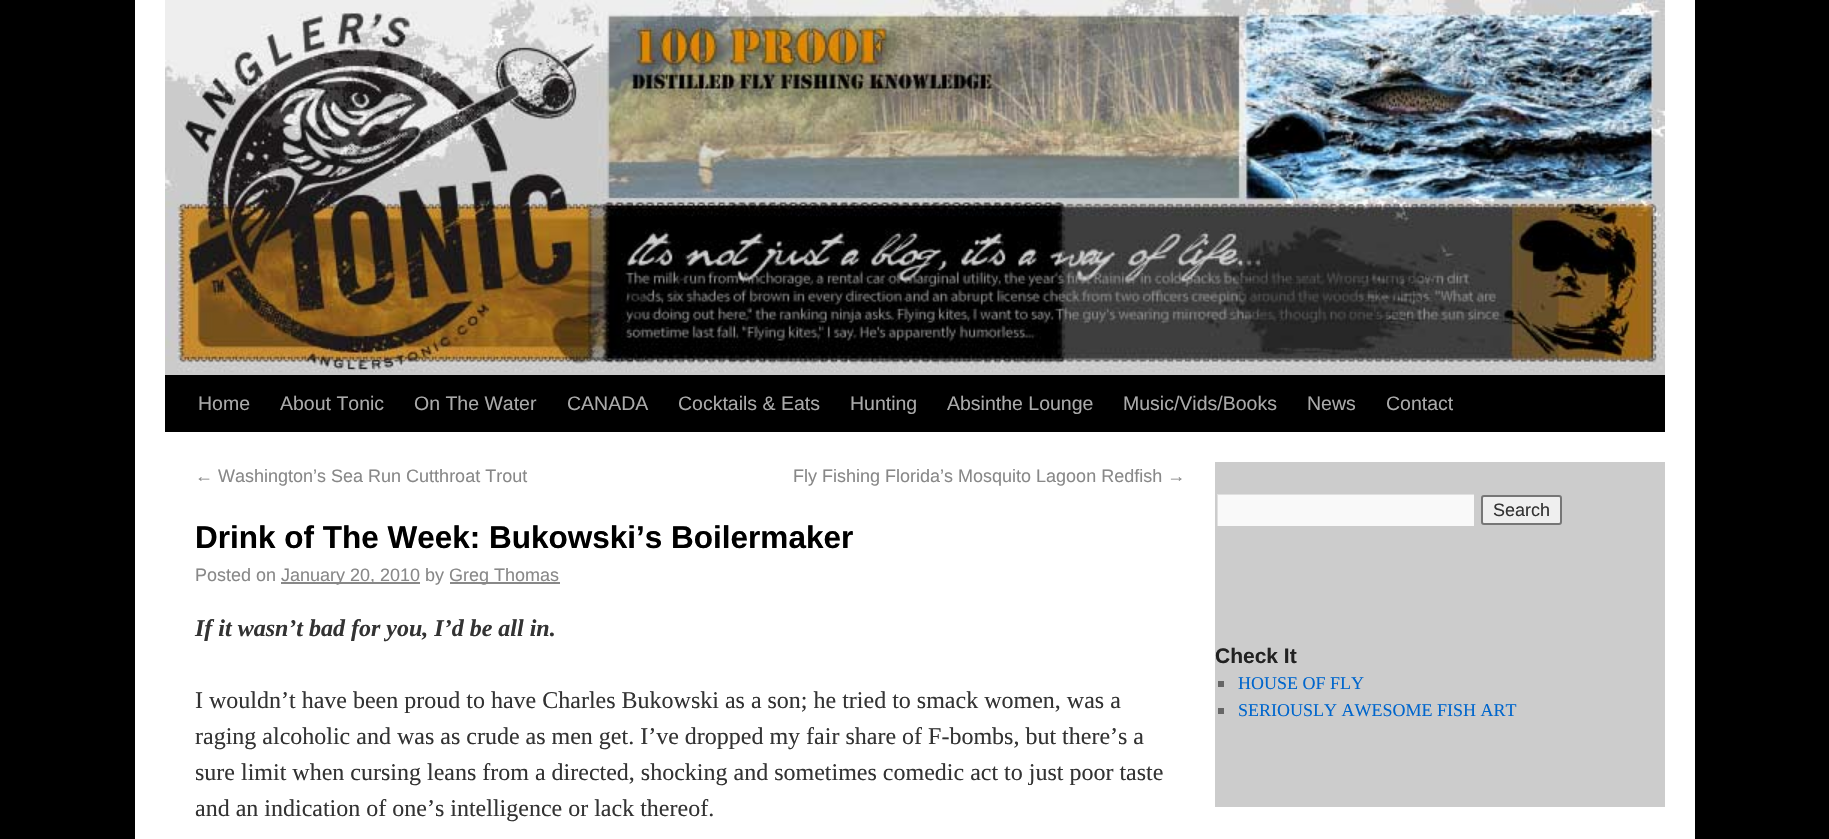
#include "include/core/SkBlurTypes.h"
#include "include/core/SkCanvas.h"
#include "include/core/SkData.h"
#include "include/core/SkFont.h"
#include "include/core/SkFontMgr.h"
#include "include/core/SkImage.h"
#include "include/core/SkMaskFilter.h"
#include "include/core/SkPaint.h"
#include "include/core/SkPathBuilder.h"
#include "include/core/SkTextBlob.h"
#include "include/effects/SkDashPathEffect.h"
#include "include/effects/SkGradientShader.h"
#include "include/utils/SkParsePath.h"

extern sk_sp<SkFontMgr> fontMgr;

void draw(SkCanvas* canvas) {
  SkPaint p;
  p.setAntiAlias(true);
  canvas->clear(SK_ColorBLACK);
  p.setColor(SK_ColorWHITE);
  canvas->drawRect(SkRect::MakeLTRB(135, 0, 1695, 839), p);
  canvas->drawImageRect(SkImages::DeferredFromEncodedData(SkData::MakeFromFileName("images/1.png")), SkRect::MakeLTRB(165, 0, 1665, 375), SkSamplingOptions());
  p.setColor(SK_ColorBLACK);
  canvas->drawRect(SkRect::MakeLTRB(165, 375, 1665, 432), p);
  p.setColor(SkColorSetRGB(136, 136, 136));
  canvas->drawRect(SkRect::MakeLTRB(281, 582, 420, 584), p);
  canvas->drawRect(SkRect::MakeLTRB(450, 582, 560, 584), p);
  p.setColor(SkColorSetRGB(204, 204, 204));
  canvas->drawRect(SkRect::MakeLTRB(1215, 462, 1665, 807), p);
  p.setColor(SkColorSetRGB(249, 249, 249));
  canvas->drawRect(SkRect::MakeLTRB(1218, 495, 1474, 526), p);
  canvas->save();
  canvas->clipRect(SkRect::MakeLTRB(1217, 494, 1475, 527));
  p.setColor(SkColorSetRGB(224, 224, 224));
  canvas->drawPath(SkPathBuilder(SkPathFillType::kEvenOdd).moveTo(1068, 345).lineTo(1623, 345).lineTo(1623, 675).lineTo(1068, 675).close().moveTo(1218, 495).lineTo(1476, 495).lineTo(1476, 528).lineTo(1218, 528).close().detach(), p);
  canvas->restore();
  p.setStyle(SkPaint::kStroke_Style);
  p.setStrokeWidth(2);
  p.setColor(SkColorSetRGB(204, 204, 204));
  canvas->drawRect(SkRect::MakeLTRB(1216, 493, 1475, 527), p);
  p.setStyle(SkPaint::kFill_Style);
  p.setColor(SkColorSetRGB(239, 239, 239));
  canvas->drawRoundRect(SkRect::MakeLTRB(1482, 496, 1561, 524), 2, 2, p);
  p.setStyle(SkPaint::kStroke_Style);
  p.setColor(SkColorSetRGB(118, 118, 118));
  canvas->drawRoundRect(SkRect::MakeLTRB(1482, 496, 1561, 524), 2, 2, p);
  p.setStyle(SkPaint::kFill_Style);
  p.setColor(SkColorSetRGB(102, 102, 102));
  canvas->drawRect(SkRect::MakeLTRB(1218, 681, 1224, 687), p);
  canvas->drawRect(SkRect::MakeLTRB(1218, 708, 1224, 714), p);
  SkFont font1(fontMgr->matchFamilyStyle("Liberation Sans", SkFontStyle::Normal()), 19.5f);
  font1.setSubpixel(true);
  p.setColor(SkColorSetRGB(170, 170, 170));
  canvas->drawString("Home", 198, 410, font1, p);
  canvas->drawString("About Tonic", 280, 410, font1, p);
  canvas->drawString("On The Water", 414, 410, font1, p);
  canvas->drawString("CANADA", 567, 410, font1, p);
  canvas->drawString("Cocktails & Eats", 678, 410, font1, p);
  canvas->drawString("Hunting", 850, 410, font1, p);
  canvas->drawString("Absinthe Lounge", 947, 410, font1, p);
  canvas->drawString("Music/Vids/Books", 1123, 410, font1, p);
  canvas->drawString("News", 1307, 410, font1, p);
  canvas->drawString("Contact", 1386, 410, font1, p);
  SkFont font2(fontMgr->matchFamilyStyle("Liberation Sans", SkFontStyle::Normal()), 18);
  font2.setSubpixel(true);
  p.setColor(SkColorSetRGB(136, 136, 136));
  canvas->drawString("← Washington’s Sea Run Cutthroat Trout", 195, 482, font2, p);
  canvas->drawString("Fly Fishing Florida’s Mosquito Lagoon Redfish →", 793, 482, font2, p);
  SkFont font3(fontMgr->matchFamilyStyle("Liberation Sans", SkFontStyle::Bold()), 31.5f);
  font3.setSubpixel(true);
  p.setColor(SK_ColorBLACK);
  canvas->drawString("Drink of The Week: Bukowski’s Boilermaker", 195, 548, font3, p);
  p.setColor(SkColorSetRGB(136, 136, 136));
  canvas->drawString("Posted on", 195, 581, font2, p);
  canvas->drawString("January 20, 2010 by", 281, 581, font2, p);
  canvas->drawString("Greg Thomas", 449, 581, font2, p);
  SkFont font4(fontMgr->matchFamilyStyle("Liberation Serif", SkFontStyle::BoldItalic()), 24);
  font4.setSubpixel(true);
  p.setColor(SkColorSetRGB(51, 51, 51));
  canvas->drawString("If it wasn’t bad for you, I’d be all in.", 195, 636, font4, p);
  SkFont font5(fontMgr->matchFamilyStyle("Liberation Serif", SkFontStyle::Normal()), 24);
  font5.setSubpixel(true);
  canvas->drawString("I wouldn’t have been proud to have Charles Bukowski as a son; he tried to smack women, was a", 195, 708, font5, p);
  canvas->drawString("raging alcoholic and was as crude as men get. I’ve dropped my fair share of F-bombs, but there’s a", 195, 744, font5, p);
  canvas->drawString("sure limit when cursing leans from a directed, shocking and sometimes comedic act to just poor taste", 195, 780, font5, p);
  canvas->drawString("and an indication of one’s intelligence or lack thereof.", 195, 816, font5, p);
  canvas->drawString("Search", 1493, 516, font2, p);
  SkFont font6(fontMgr->matchFamilyStyle("Liberation Sans", SkFontStyle::Bold()), 21);
  font6.setSubpixel(true);
  p.setColor(SkColorSetRGB(34, 34, 34));
  canvas->drawString("Check It", 1215, 663, font6, p);
  SkFont font7(fontMgr->matchFamilyStyle("Liberation Serif", SkFontStyle::Normal()), 18);
  font7.setSubpixel(true);
  p.setColor(SkColorSetRGB(0, 102, 204));
  canvas->drawString("HOUSE OF FLY", 1238, 689, font7, p);
  canvas->drawString("SERIOUSLY AWESOME FISH ART", 1238, 716, font7, p);
}
